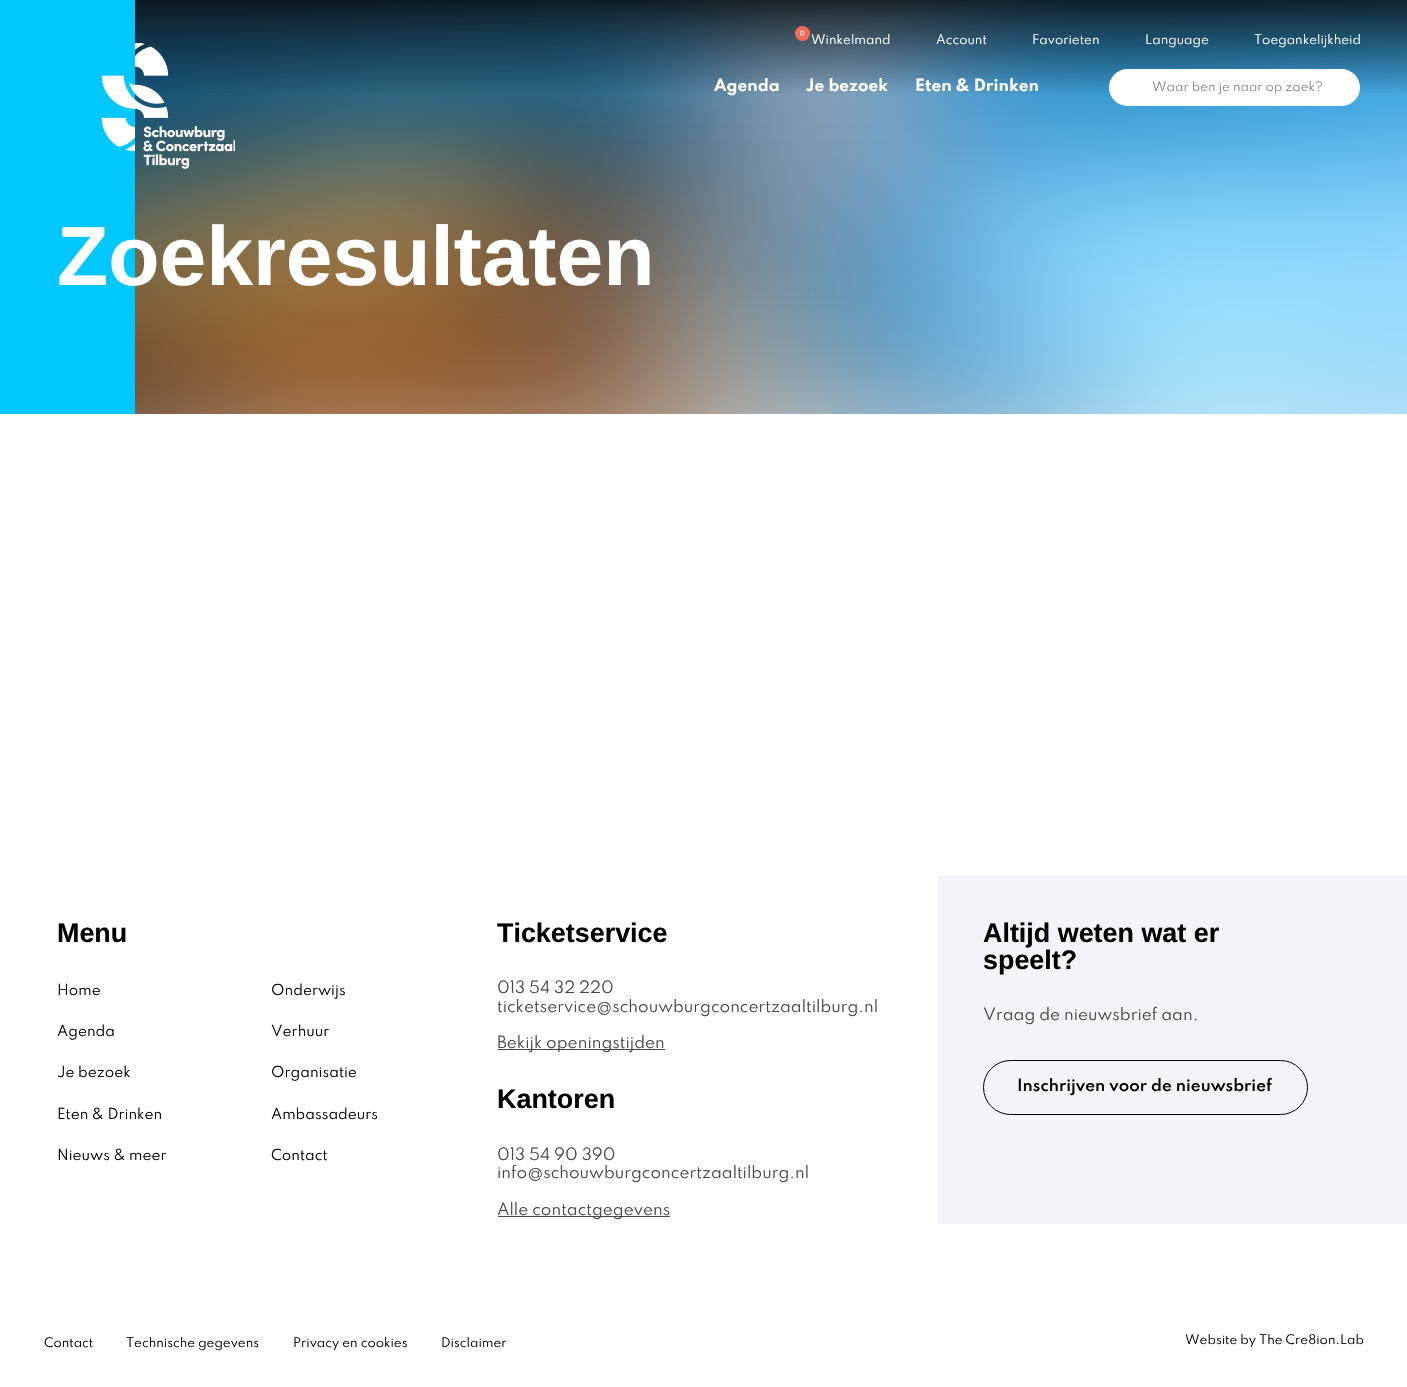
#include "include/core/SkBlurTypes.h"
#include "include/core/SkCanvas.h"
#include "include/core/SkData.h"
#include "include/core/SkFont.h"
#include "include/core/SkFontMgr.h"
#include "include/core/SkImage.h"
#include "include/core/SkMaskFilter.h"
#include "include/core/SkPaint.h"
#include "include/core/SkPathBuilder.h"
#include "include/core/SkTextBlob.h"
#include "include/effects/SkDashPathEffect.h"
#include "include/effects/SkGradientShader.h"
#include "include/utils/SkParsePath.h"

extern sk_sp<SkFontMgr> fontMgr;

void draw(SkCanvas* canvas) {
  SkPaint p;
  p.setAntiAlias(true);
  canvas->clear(SK_ColorWHITE);
  canvas->drawImageRect(SkImages::DeferredFromEncodedData(SkData::MakeFromFileName("images/2.png")), SkRect::MakeLTRB(135, 0, 1407, 414), SkSamplingOptions());
  {
    const SkColor colors[] = {SkColorSetARGB(204, 0, 0, 0), SkColorSetARGB(0, 0, 0, 0)};
    const float stops[] = {0, 0.23f};
    const SkPoint ends[] = {{704, 0}, {704, 414}};
    p.setShader(SkGradientShader::MakeLinear(ends, colors, stops, 2, SkTileMode::kClamp));
    p.setAlpha(255);
  }
  canvas->drawRect(SkRect::MakeLTRB(135, 0, 1407, 93), p);
  p.setShader(nullptr);
  p.setColor(SkColorSetRGB(0, 200, 255));
  canvas->drawRect(SkRect::MakeLTRB(0, 0, 135, 414), p);
  canvas->drawImageRect(SkImages::DeferredFromEncodedData(SkData::MakeFromFileName("images/1.png")), SkRect::MakeLTRB(101, 43, 235, 169), SkSamplingOptions());
  p.setColor(SkColorSetRGB(242, 108, 91));
  canvas->drawCircle(802.5f, 33.5f, 7.5f, p);
  p.setColor(SK_ColorWHITE);
  canvas->drawRoundRect(SkRect::MakeLTRB(1109, 69, 1360, 106), 18.5f, 18.5f, p);
  p.setColor(SkColorSetRGB(69, 69, 69));
  canvas->drawRect(SkRect::MakeLTRB(498, 1049, 665, 1050), p);
  canvas->drawRect(SkRect::MakeLTRB(498, 1216, 670, 1217), p);
  p.setColor(SkColorSetRGB(243, 243, 249));
  canvas->drawRect(SkRect::MakeLTRB(938, 875, 1407, 1224), p);
  p.setStyle(SkPaint::kStroke_Style);
  p.setStrokeWidth(1);
  p.setColor(SK_ColorBLACK);
  canvas->drawRoundRect(SkRect::MakeLTRB(983.5f, 1060.5f, 1307.5f, 1114.5f), 27, 27, p);
  SkFont font1(fontMgr->matchFamilyStyle("Liberation Sans", SkFontStyle::Normal()), 8);
  font1.setSubpixel(true);
  p.setStyle(SkPaint::kFill_Style);
  p.setColor(SK_ColorWHITE);
  canvas->drawString("0", 800, 36, font1, p);
  SkFont font2(fontMgr->matchFamilyStyle("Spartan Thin", SkFontStyle::Normal()), 11.75f);
  font2.setSubpixel(true);
  canvas->drawString("Winkelmand", 811, 44, font2, p);
  canvas->drawString("Account", 936, 44, font2, p);
  canvas->drawString("Favorieten", 1032, 44, font2, p);
  canvas->drawString("Language", 1145, 44, font2, p);
  canvas->drawString("Toegankelijkheid", 1254, 44, font2, p);
  SkFont font3(fontMgr->matchFamilyStyle("Spartan Thin", SkFontStyle::Bold()), 15.1f);
  font3.setSubpixel(true);
  canvas->drawString("Agenda", 714, 91, font3, p);
  canvas->drawString("Je bezoek", 806, 91, font3, p);
  canvas->drawString("Eten & Drinken", 915, 91, font3, p);
  p.setColor(SkColorSetRGB(136, 136, 136));
  canvas->drawString("Waar ben je naar op zoek?", 1152, 91, font2, p);
  SkFont font4(fontMgr->matchFamilyStyle("Liberation Sans", SkFontStyle::Bold()), 84);
  font4.setSubpixel(true);
  p.setColor(SK_ColorWHITE);
  canvas->drawString("Zoekresultaten", 57, 285, font4, p);
  SkFont font5(fontMgr->matchFamilyStyle("Liberation Sans", SkFontStyle::Bold()), 26.9f);
  font5.setSubpixel(true);
  p.setColor(SK_ColorBLACK);
  canvas->drawString("Menu", 57, 942, font5, p);
  SkFont font6(fontMgr->matchFamilyStyle("Spartan Thin", SkFontStyle::Normal()), 13.5f);
  font6.setSubpixel(true);
  canvas->drawString("Home", 57, 995, font6, p);
  canvas->drawString("Onderwijs", 271, 995, font6, p);
  canvas->drawString("Agenda", 57, 1036, font6, p);
  canvas->drawString("Verhuur", 271, 1036, font6, p);
  canvas->drawString("Je bezoek", 57, 1077, font6, p);
  canvas->drawString("Organisatie", 271, 1077, font6, p);
  canvas->drawString("Eten & Drinken", 57, 1119, font6, p);
  canvas->drawString("Ambassadeurs", 271, 1119, font6, p);
  canvas->drawString("Nieuws & meer", 57, 1160, font6, p);
  canvas->drawString("Contact", 271, 1160, font6, p);
  canvas->drawString("Ticketservice", 497, 942, font5, p);
  SkFont font7(fontMgr->matchFamilyStyle("Spartan Thin", SkFontStyle::Normal()), 15.1f);
  font7.setSubpixel(true);
  p.setColor(SkColorSetRGB(69, 69, 69));
  canvas->drawString("013 54 32 220", 497, 993, font7, p);
  canvas->drawString("ticketservice@schouwburgconcertzaaltilburg.nl", 497, 1012, font7, p);
  canvas->drawString("Bekijk openingstijden", 497, 1048, font7, p);
  p.setColor(SK_ColorBLACK);
  canvas->drawString("Kantoren", 497, 1108, font5, p);
  p.setColor(SkColorSetRGB(69, 69, 69));
  canvas->drawString("013 54 90 390", 497, 1160, font7, p);
  canvas->drawString("info@schouwburgconcertzaaltilburg.nl", 497, 1178, font7, p);
  canvas->drawString("Alle contactgegevens", 497, 1215, font7, p);
  p.setColor(SK_ColorBLACK);
  canvas->drawString("Altijd weten wat er", 983, 942, font5, p);
  canvas->drawString("speelt?", 983, 969, font5, p);
  p.setColor(SkColorSetRGB(69, 69, 69));
  canvas->drawString("Vraag de nieuwsbrief aan.", 983, 1020, font7, p);
  SkFont font8(fontMgr->matchFamilyStyle("Spartan Thin", SkFontStyle(600, SkFontStyle::kNormal_Width, SkFontStyle::kUpright_Slant)), 15.1f);
  font8.setSubpixel(true);
  p.setColor(SK_ColorBLACK);
  canvas->drawString("Inschrijven voor de nieuwsbrief", 1017, 1091, font8, p);
  canvas->drawString("Contact", 44, 1347, font2, p);
  canvas->drawString("Technische gegevens", 126, 1347, font2, p);
  canvas->drawString("Privacy en cookies", 293, 1347, font2, p);
  canvas->drawString("Disclaimer", 441, 1347, font2, p);
  canvas->drawString("Website by The Cre8ion.Lab", 1185, 1344, font2, p);
}
